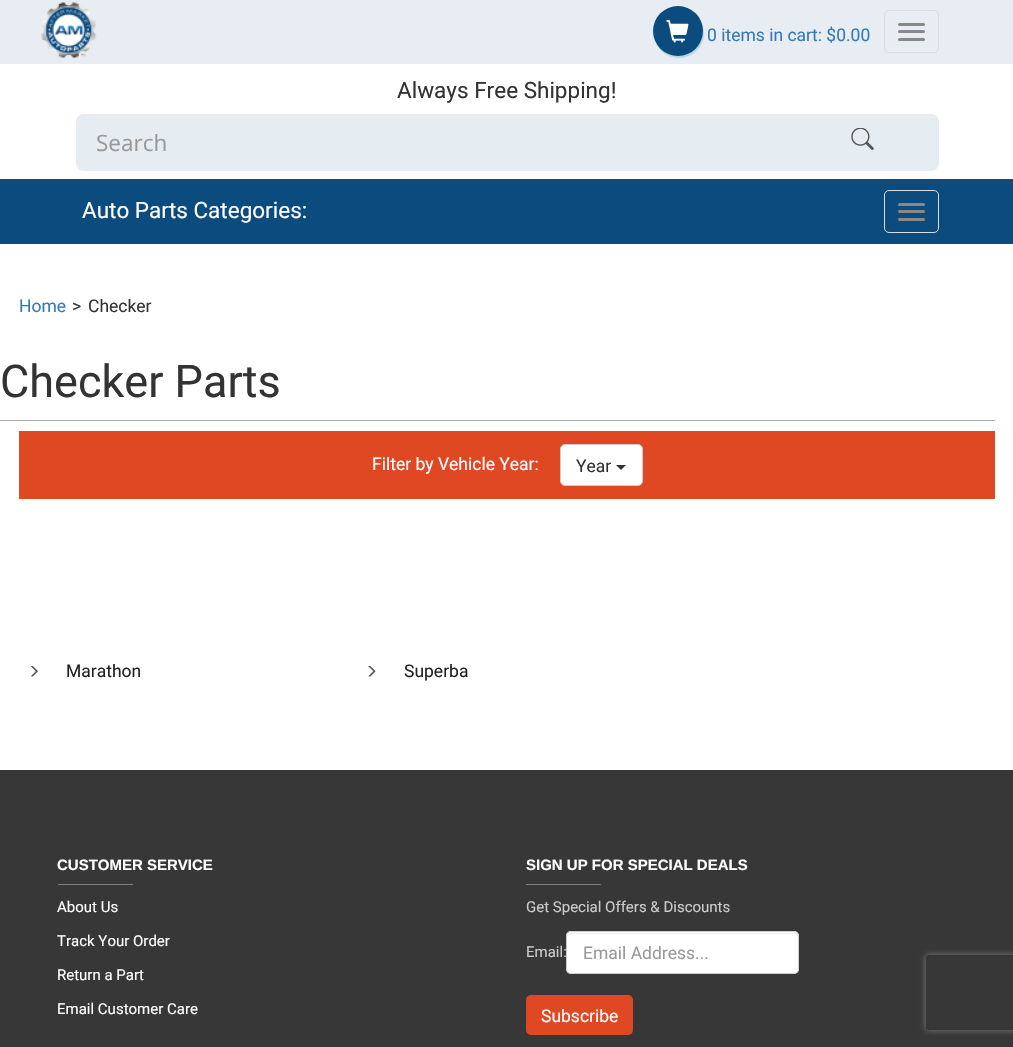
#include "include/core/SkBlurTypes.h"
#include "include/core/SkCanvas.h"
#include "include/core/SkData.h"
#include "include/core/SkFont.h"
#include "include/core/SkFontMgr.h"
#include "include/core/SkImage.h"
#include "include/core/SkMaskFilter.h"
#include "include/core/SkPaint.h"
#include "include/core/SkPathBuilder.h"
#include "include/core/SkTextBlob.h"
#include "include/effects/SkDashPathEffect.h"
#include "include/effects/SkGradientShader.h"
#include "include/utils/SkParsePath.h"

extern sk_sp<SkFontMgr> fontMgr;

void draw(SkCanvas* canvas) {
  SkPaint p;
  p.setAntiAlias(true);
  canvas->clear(SK_ColorWHITE);
  p.setColor(SkColorSetRGB(231, 237, 242));
  canvas->drawRect(SkRect::MakeLTRB(0, 0, 1013, 64), p);
  canvas->drawImageRect(SkImages::DeferredFromEncodedData(SkData::MakeFromFileName("images/1.png")), SkRect::MakeLTRB(41, 2, 97, 59), SkSamplingOptions());
  p.setColor(SkColorSetRGB(173, 216, 230));
  p.setMaskFilter(SkMaskFilter::MakeBlur(kNormal_SkBlurStyle, 0.5f));
  canvas->drawRoundRect(SkRect::MakeLTRB(654, 8, 704, 58), 25, 25, p);
  p.setMaskFilter(nullptr);
  p.setColor(SkColorSetRGB(12, 75, 126));
  canvas->drawCircle(678, 31, 25, p);
  canvas->drawImageRect(SkImages::DeferredFromEncodedData(SkData::MakeFromFileName("images/2.png")), SkRect::MakeLTRB(666, 20, 689, 43), SkSamplingOptions());
  p.setStyle(SkPaint::kStroke_Style);
  p.setStrokeWidth(1);
  p.setColor(SkColorSetRGB(221, 221, 221));
  canvas->drawRoundRect(SkRect::MakeLTRB(884.5f, 10.5f, 938.5f, 52.5f), 4.5f, 4.5f, p);
  p.setStyle(SkPaint::kFill_Style);
  p.setColor(SkColorSetRGB(136, 136, 136));
  canvas->drawRoundRect(SkRect::MakeLTRB(898, 23, 925, 26), 1.5f, 1.5f, p);
  canvas->drawRoundRect(SkRect::MakeLTRB(898, 30, 925, 33), 1.5f, 1.5f, p);
  canvas->drawRoundRect(SkRect::MakeLTRB(898, 38, 925, 41), 1.5f, 1.5f, p);
  p.setColor(SkColorSetRGB(230, 237, 242));
  canvas->drawPath(SkPathBuilder().moveTo(84, 114).lineTo(786, 114).lineTo(786, 171).lineTo(84, 171).cubicTo(79.5f, 171, 76, 167.5f, 76, 163).lineTo(76, 122).cubicTo(76, 117.5f, 79.5f, 114, 84, 114).close().detach(), p);
  canvas->drawPath(SkPathBuilder().moveTo(786, 114).lineTo(931, 114).cubicTo(935.5f, 114, 939, 117.5f, 939, 122).lineTo(939, 163).cubicTo(939, 167.5f, 935.5f, 171, 931, 171).lineTo(786, 171).close().detach(), p);
  canvas->drawImageRect(SkImages::DeferredFromEncodedData(SkData::MakeFromFileName("images/3.png")), SkRect::MakeLTRB(851, 128, 874, 150), SkSamplingOptions());
  p.setColor(SkColorSetRGB(12, 75, 126));
  canvas->drawRect(SkRect::MakeLTRB(0, 179, 1013, 244), p);
  p.setStyle(SkPaint::kStroke_Style);
  p.setColor(SkColorSetRGB(221, 221, 221));
  canvas->drawRoundRect(SkRect::MakeLTRB(884.5f, 190.5f, 938.5f, 232.5f), 4.5f, 4.5f, p);
  p.setStyle(SkPaint::kFill_Style);
  p.setColor(SkColorSetRGB(136, 136, 136));
  canvas->drawRoundRect(SkRect::MakeLTRB(898, 203, 925, 206), 1.5f, 1.5f, p);
  canvas->drawRoundRect(SkRect::MakeLTRB(898, 210, 925, 213), 1.5f, 1.5f, p);
  canvas->drawRoundRect(SkRect::MakeLTRB(898, 218, 925, 221), 1.5f, 1.5f, p);
  p.setColor(SkColorSetRGB(170, 170, 170));
  canvas->drawRect(SkRect::MakeLTRB(0, 420, 995, 421), p);
  p.setColor(SkColorSetRGB(224, 72, 35));
  canvas->drawRect(SkRect::MakeLTRB(19, 431, 995, 499), p);
  p.setColor(SK_ColorWHITE);
  canvas->drawRoundRect(SkRect::MakeLTRB(560.5f, 444.5f, 642.5f, 485.5f), 4.5f, 4.5f, p);
  p.setStyle(SkPaint::kStroke_Style);
  p.setColor(SkColorSetRGB(204, 204, 204));
  canvas->drawRoundRect(SkRect::MakeLTRB(560.5f, 444.5f, 642.5f, 485.5f), 4.5f, 4.5f, p);
  p.setStyle(SkPaint::kFill_Style);
  p.setColor(SkColorSetRGB(51, 51, 51));
  canvas->drawPath(SkPathBuilder().moveTo(616, 465).lineTo(626, 465).lineTo(621, 470).close().detach(), p);
  canvas->drawImageRect(SkImages::DeferredFromEncodedData(SkData::MakeFromFileName("images/4.png")), SkRect::MakeLTRB(30, 666, 38, 677), SkSamplingOptions());
  canvas->drawImageRect(SkImages::DeferredFromEncodedData(SkData::MakeFromFileName("images/5.png")), SkRect::MakeLTRB(368, 666, 376, 677), SkSamplingOptions());
  p.setColor(SkColorSetRGB(55, 55, 55));
  canvas->drawRect(SkRect::MakeLTRB(0, 770, 1013, 1047), p);
  p.setColor(SkColorSetRGB(128, 128, 128));
  canvas->drawRect(SkRect::MakeLTRB(58, 884, 133, 885), p);
  canvas->drawRect(SkRect::MakeLTRB(526, 884, 601, 885), p);
  p.setColor(SK_ColorWHITE);
  canvas->drawRoundRect(SkRect::MakeLTRB(566, 931, 799, 974), 5, 5, p);
  p.setColor(SkColorSetRGB(236, 236, 236));
  canvas->drawPath(SkPathBuilder().moveTo(571, 934).lineTo(794, 934).cubicTo(796, 934, 798, 935, 798, 938).cubicTo(798, 935, 797, 933, 794, 933).lineTo(572, 933).cubicTo(569, 933, 568, 935, 568, 938).cubicTo(568, 935, 569, 934, 571, 934).close().detach(), p);
  p.setStyle(SkPaint::kStroke_Style);
  p.setColor(SkColorSetRGB(204, 204, 204));
  canvas->drawRoundRect(SkRect::MakeLTRB(566.5f, 931.5f, 798.5f, 973.5f), 4.5f, 4.5f, p);
  p.setStyle(SkPaint::kFill_Style);
  p.setColor(SkColorSetRGB(224, 72, 35));
  canvas->drawRoundRect(SkRect::MakeLTRB(526, 995, 633, 1035), 5, 5, p);
  canvas->save();
  canvas->clipPath(SkPathBuilder(SkPathFillType::kEvenOdd).moveTo(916, 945).lineTo(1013, 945).lineTo(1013, 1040).lineTo(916, 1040).close().moveTo(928.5f, 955).lineTo(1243.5f, 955).cubicTo(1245, 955, 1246, 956, 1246, 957.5f).lineTo(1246, 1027.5f).cubicTo(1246, 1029, 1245, 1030, 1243.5f, 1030).lineTo(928.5f, 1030).cubicTo(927, 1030, 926, 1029, 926, 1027.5f).lineTo(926, 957.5f).cubicTo(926, 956, 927, 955, 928.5f, 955).close().detach(), true);
  p.setColor(SkColorSetRGB(128, 128, 128));
  p.setMaskFilter(SkMaskFilter::MakeBlur(kNormal_SkBlurStyle, 3));
  canvas->drawRoundRect(SkRect::MakeLTRB(926, 955, 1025, 1030), 2.5f, 2.5f, p);
  p.setMaskFilter(nullptr);
  canvas->restore();
  SkFont font1(fontMgr->matchFamilyStyle("Roboto", SkFontStyle::Normal()), 17.5f);
  font1.setSubpixel(true);
  p.setColor(SkColorSetRGB(51, 122, 183));
  canvas->drawString("0 items in cart: $0.00", 707, 41, font1, p);
  SkFont font2(fontMgr->matchFamilyStyle("Roboto", SkFontStyle::Normal()), 22.5f);
  font2.setSubpixel(true);
  p.setColor(SkColorSetRGB(51, 51, 51));
  canvas->drawString("Always Free Shipping!", 397, 98, font2, p);
  SkFont font3(fontMgr->matchFamilyStyle("Open Sans", SkFontStyle::Normal()), 22.5f);
  font3.setSubpixel(true);
  p.setColor(SkColorSetRGB(153, 153, 153));
  canvas->drawString("Search", 96, 151, font3, p);
  p.setColor(SK_ColorWHITE);
  canvas->drawString("Auto Parts Categories:", 82, 218, font2, p);
  p.setColor(SkColorSetRGB(51, 122, 183));
  canvas->drawString("Home", 19, 312, font1, p);
  p.setColor(SkColorSetRGB(51, 51, 51));
  canvas->drawString(">", 72, 312, font1, p);
  canvas->drawString("Checker", 88, 312, font1, p);
  SkFont font4(fontMgr->matchFamilyStyle("Roboto", SkFontStyle::Normal()), 45);
  font4.setSubpixel(true);
  canvas->drawString("Checker Parts", 0, 397, font4, p);
  p.setColor(SK_ColorWHITE);
  canvas->drawString("Filter by Vehicle Year:", 372, 470, font1, p);
  p.setColor(SkColorSetRGB(51, 51, 51));
  canvas->drawString("Year", 576, 472, font1, p);
  p.setColor(SkColorSetRGB(34, 34, 34));
  canvas->drawString("Marathon", 66, 677, font1, p);
  canvas->drawString("Superba", 404, 677, font1, p);
  SkFont font5(fontMgr->matchFamilyStyle("Liberation Sans", SkFontStyle::Bold()), 15);
  font5.setSubpixel(true);
  p.setColor(SK_ColorWHITE);
  canvas->drawString("CUSTOMER SERVICE", 57, 870, font5, p);
  SkFont font6(fontMgr->matchFamilyStyle("Roboto", SkFontStyle::Normal()), 15);
  font6.setSubpixel(true);
  canvas->drawString("About Us", 57, 912, font6, p);
  canvas->drawString("Track Your Order", 57, 946, font6, p);
  canvas->drawString("Return a Part", 57, 980, font6, p);
  canvas->drawString("Email Customer Care", 57, 1014, font6, p);
  canvas->drawString("SIGN UP FOR SPECIAL DEALS", 526, 870, font5, p);
  p.setColor(SkColorSetRGB(204, 204, 204));
  canvas->drawString("Get Special Offers & Discounts", 526, 912, font6, p);
  canvas->drawString("Email:", 526, 957, font6, p);
  p.setColor(SkColorSetRGB(153, 153, 153));
  canvas->drawString("Email Address...", 583, 959, font1, p);
  p.setColor(SK_ColorWHITE);
  canvas->drawString("Subscribe", 541, 1022, font1, p);
}
